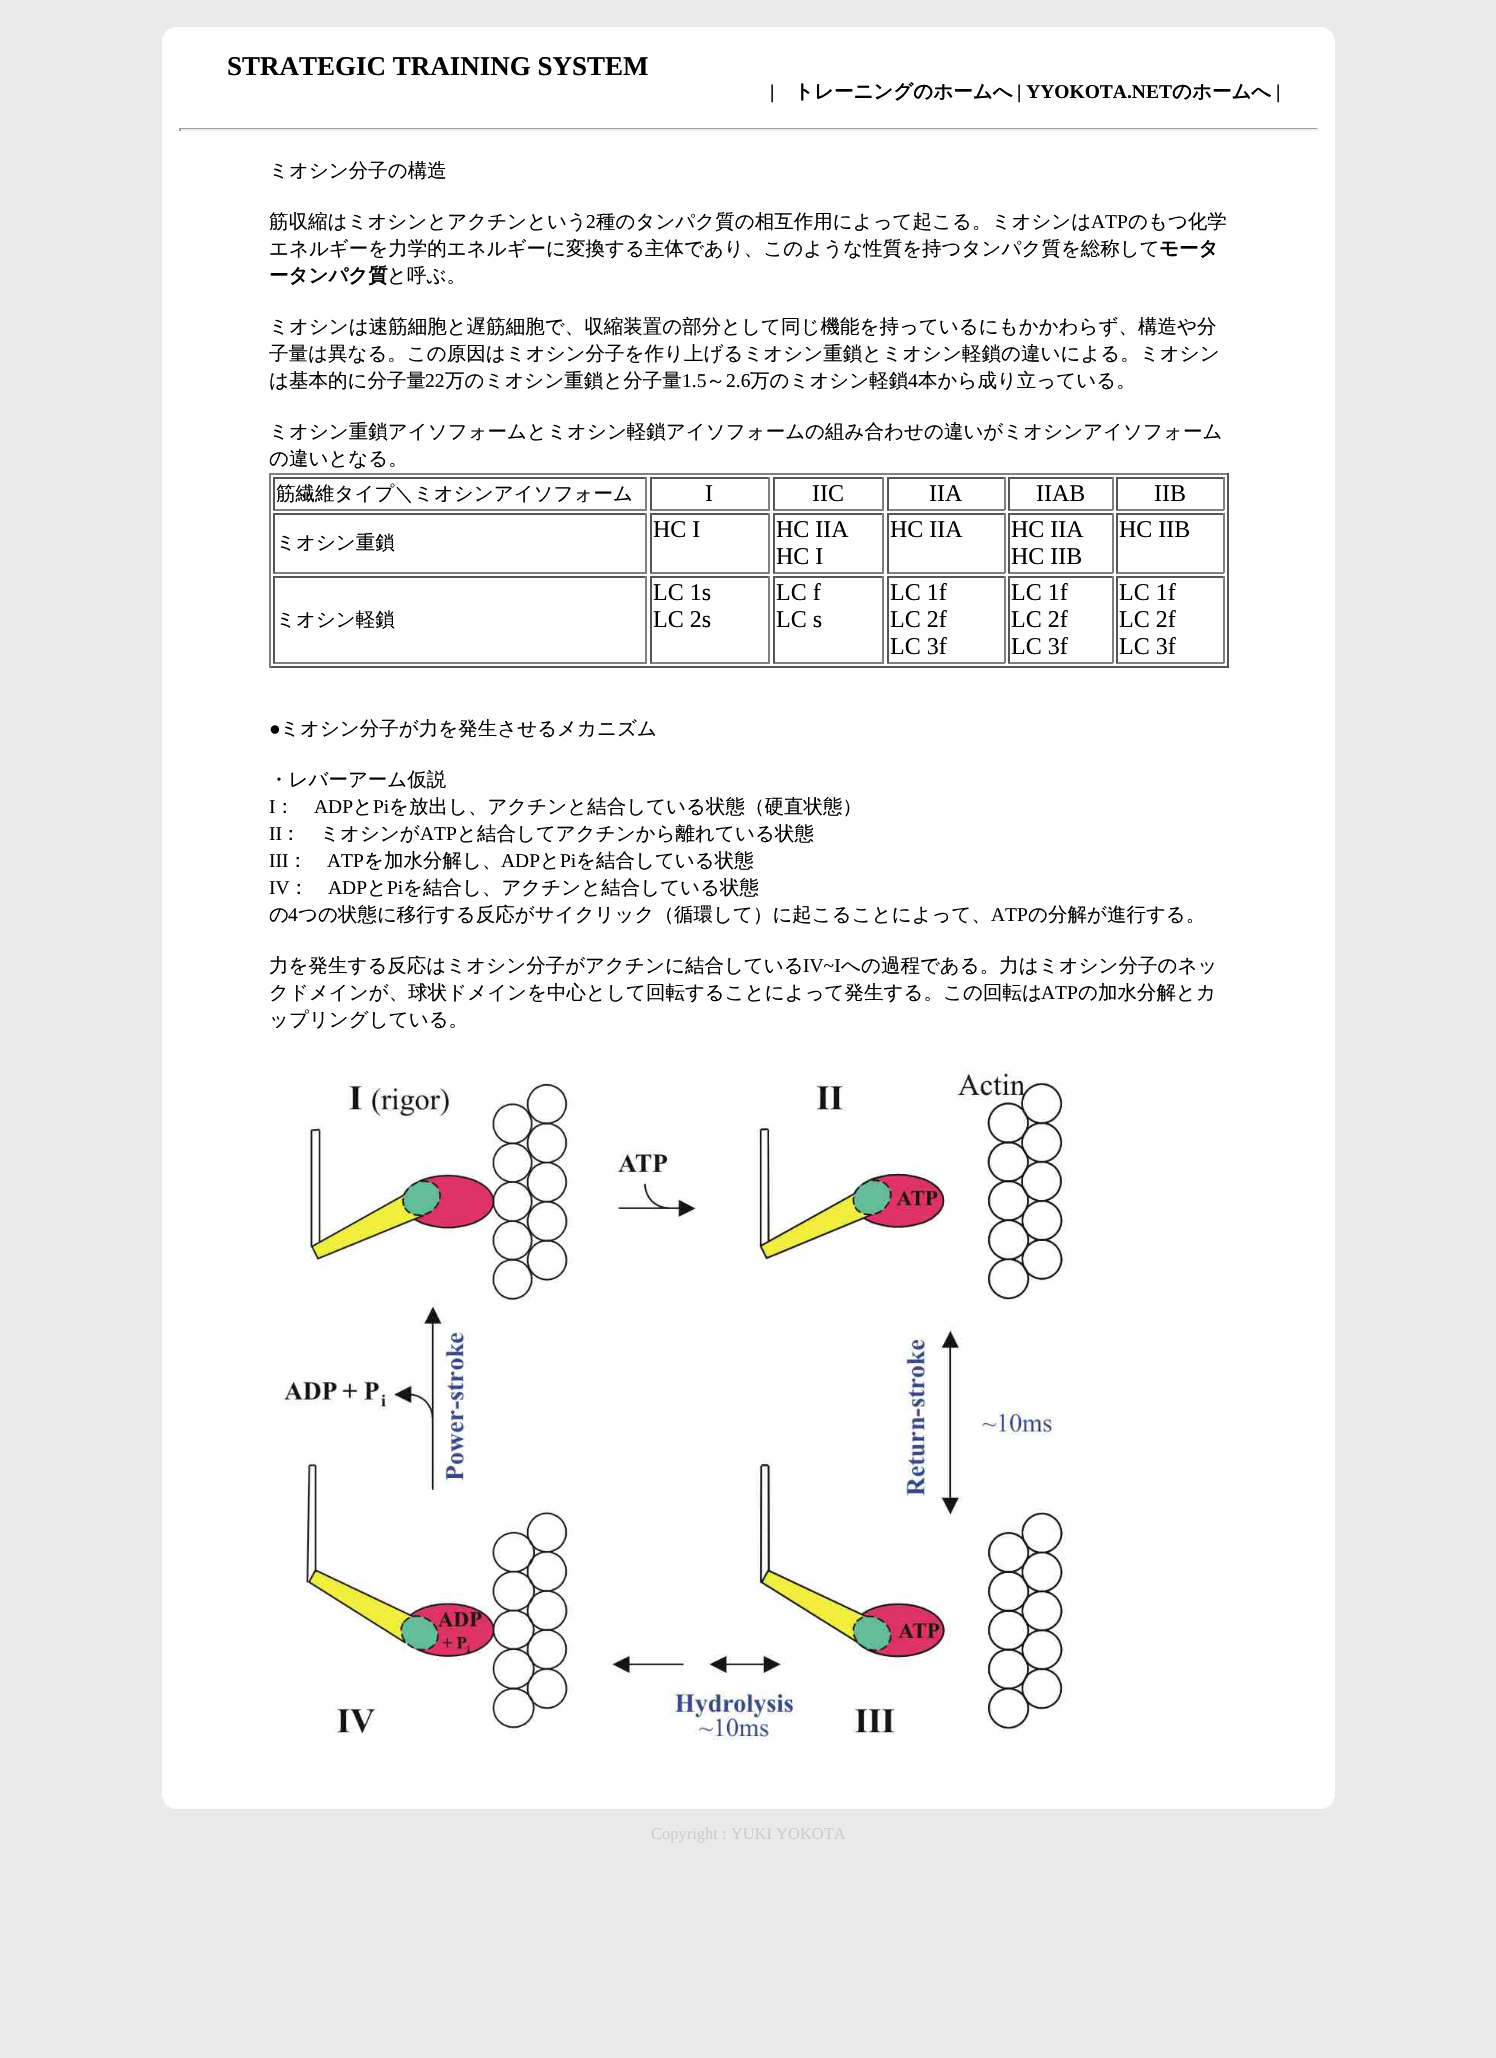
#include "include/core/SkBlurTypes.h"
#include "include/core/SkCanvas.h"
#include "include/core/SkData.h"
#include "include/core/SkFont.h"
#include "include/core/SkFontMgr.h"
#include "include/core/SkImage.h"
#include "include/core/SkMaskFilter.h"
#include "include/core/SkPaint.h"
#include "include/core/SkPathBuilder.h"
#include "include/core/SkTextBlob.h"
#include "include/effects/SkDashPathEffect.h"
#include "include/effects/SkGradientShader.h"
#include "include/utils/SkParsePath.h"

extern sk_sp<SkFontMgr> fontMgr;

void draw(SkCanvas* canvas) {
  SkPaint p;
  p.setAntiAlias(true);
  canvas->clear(SkColorSetRGB(234, 234, 234));
  p.setColor(SK_ColorWHITE);
  canvas->drawRect(SkRect::MakeLTRB(162, 27, 1335, 1809), p);
  canvas->drawImageRect(SkImages::DeferredFromEncodedData(SkData::MakeFromFileName("images/1.png")), SkRect::MakeLTRB(162, 27, 173, 38), SkSamplingOptions());
  canvas->drawImageRect(SkImages::DeferredFromEncodedData(SkData::MakeFromFileName("images/2.png")), SkRect::MakeLTRB(1324, 27, 1335, 38), SkSamplingOptions());
  p.setColor(SkColorSetRGB(159, 159, 159));
  canvas->drawRect(SkRect::MakeLTRB(179, 128, 1319, 129), p);
  p.setColor(SkColorSetRGB(238, 238, 238));
  canvas->drawRect(SkRect::MakeLTRB(1317, 128, 1319, 131), p);
  canvas->drawRect(SkRect::MakeLTRB(179, 129, 1319, 131), p);
  p.setColor(SkColorSetRGB(159, 159, 159));
  canvas->drawRect(SkRect::MakeLTRB(179, 128, 181, 131), p);
  p.setColor(SkColorSetRGB(128, 128, 128));
  canvas->drawRect(SkRect::MakeLTRB(269, 473, 1229, 475), p);
  p.setColor(SkColorSetRGB(85, 85, 85));
  canvas->drawRect(SkRect::MakeLTRB(1227, 473, 1229, 668), p);
  canvas->drawRect(SkRect::MakeLTRB(269, 666, 1229, 668), p);
  p.setColor(SkColorSetRGB(128, 128, 128));
  canvas->drawRect(SkRect::MakeLTRB(269, 473, 271, 668), p);
  p.setColor(SkColorSetRGB(85, 85, 85));
  canvas->drawRect(SkRect::MakeLTRB(273, 477, 647, 479), p);
  p.setColor(SkColorSetRGB(128, 128, 128));
  canvas->drawRect(SkRect::MakeLTRB(645, 477, 647, 510), p);
  canvas->drawRect(SkRect::MakeLTRB(273, 509, 647, 511), p);
  p.setColor(SkColorSetRGB(85, 85, 85));
  canvas->drawRect(SkRect::MakeLTRB(273, 477, 275, 510), p);
  canvas->drawRect(SkRect::MakeLTRB(650, 477, 770, 479), p);
  p.setColor(SkColorSetRGB(128, 128, 128));
  canvas->drawRect(SkRect::MakeLTRB(768, 477, 770, 510), p);
  canvas->drawRect(SkRect::MakeLTRB(650, 509, 770, 511), p);
  p.setColor(SkColorSetRGB(85, 85, 85));
  canvas->drawRect(SkRect::MakeLTRB(650, 477, 652, 510), p);
  canvas->drawRect(SkRect::MakeLTRB(773, 477, 884, 479), p);
  p.setColor(SkColorSetRGB(128, 128, 128));
  canvas->drawRect(SkRect::MakeLTRB(882, 477, 884, 510), p);
  canvas->drawRect(SkRect::MakeLTRB(773, 509, 884, 511), p);
  p.setColor(SkColorSetRGB(85, 85, 85));
  canvas->drawRect(SkRect::MakeLTRB(773, 477, 775, 510), p);
  canvas->drawRect(SkRect::MakeLTRB(887, 477, 1005, 479), p);
  p.setColor(SkColorSetRGB(128, 128, 128));
  canvas->drawRect(SkRect::MakeLTRB(1004, 477, 1006, 510), p);
  canvas->drawRect(SkRect::MakeLTRB(887, 509, 1005, 511), p);
  p.setColor(SkColorSetRGB(85, 85, 85));
  canvas->drawRect(SkRect::MakeLTRB(887, 477, 889, 510), p);
  canvas->drawRect(SkRect::MakeLTRB(1008, 477, 1113, 479), p);
  p.setColor(SkColorSetRGB(128, 128, 128));
  canvas->drawRect(SkRect::MakeLTRB(1112, 477, 1114, 510), p);
  canvas->drawRect(SkRect::MakeLTRB(1008, 509, 1113, 511), p);
  p.setColor(SkColorSetRGB(85, 85, 85));
  canvas->drawRect(SkRect::MakeLTRB(1008, 477, 1010, 510), p);
  canvas->drawRect(SkRect::MakeLTRB(1116, 477, 1224, 479), p);
  p.setColor(SkColorSetRGB(128, 128, 128));
  canvas->drawRect(SkRect::MakeLTRB(1223, 477, 1225, 510), p);
  canvas->drawRect(SkRect::MakeLTRB(1116, 509, 1224, 511), p);
  p.setColor(SkColorSetRGB(85, 85, 85));
  canvas->drawRect(SkRect::MakeLTRB(1116, 477, 1118, 510), p);
  canvas->drawRect(SkRect::MakeLTRB(650, 513, 770, 515), p);
  p.setColor(SkColorSetRGB(128, 128, 128));
  canvas->drawRect(SkRect::MakeLTRB(768, 513, 770, 573), p);
  canvas->drawRect(SkRect::MakeLTRB(650, 572, 770, 574), p);
  p.setColor(SkColorSetRGB(85, 85, 85));
  canvas->drawRect(SkRect::MakeLTRB(650, 513, 652, 573), p);
  canvas->drawRect(SkRect::MakeLTRB(773, 513, 884, 515), p);
  p.setColor(SkColorSetRGB(128, 128, 128));
  canvas->drawRect(SkRect::MakeLTRB(882, 513, 884, 573), p);
  canvas->drawRect(SkRect::MakeLTRB(773, 572, 884, 574), p);
  p.setColor(SkColorSetRGB(85, 85, 85));
  canvas->drawRect(SkRect::MakeLTRB(773, 513, 775, 573), p);
  canvas->drawRect(SkRect::MakeLTRB(887, 513, 1005, 515), p);
  p.setColor(SkColorSetRGB(128, 128, 128));
  canvas->drawRect(SkRect::MakeLTRB(1004, 513, 1006, 573), p);
  canvas->drawRect(SkRect::MakeLTRB(887, 572, 1005, 574), p);
  p.setColor(SkColorSetRGB(85, 85, 85));
  canvas->drawRect(SkRect::MakeLTRB(887, 513, 889, 573), p);
  canvas->drawRect(SkRect::MakeLTRB(1008, 513, 1113, 515), p);
  p.setColor(SkColorSetRGB(128, 128, 128));
  canvas->drawRect(SkRect::MakeLTRB(1112, 513, 1114, 573), p);
  canvas->drawRect(SkRect::MakeLTRB(1008, 572, 1113, 574), p);
  p.setColor(SkColorSetRGB(85, 85, 85));
  canvas->drawRect(SkRect::MakeLTRB(1008, 513, 1010, 573), p);
  canvas->drawRect(SkRect::MakeLTRB(1116, 513, 1224, 515), p);
  p.setColor(SkColorSetRGB(128, 128, 128));
  canvas->drawRect(SkRect::MakeLTRB(1223, 513, 1225, 573), p);
  canvas->drawRect(SkRect::MakeLTRB(1116, 572, 1224, 574), p);
  p.setColor(SkColorSetRGB(85, 85, 85));
  canvas->drawRect(SkRect::MakeLTRB(1116, 513, 1118, 573), p);
  canvas->drawRect(SkRect::MakeLTRB(273, 513, 647, 515), p);
  p.setColor(SkColorSetRGB(128, 128, 128));
  canvas->drawRect(SkRect::MakeLTRB(645, 513, 647, 573), p);
  canvas->drawRect(SkRect::MakeLTRB(273, 572, 647, 574), p);
  p.setColor(SkColorSetRGB(85, 85, 85));
  canvas->drawRect(SkRect::MakeLTRB(273, 513, 275, 573), p);
  canvas->drawRect(SkRect::MakeLTRB(273, 576, 647, 578), p);
  p.setColor(SkColorSetRGB(128, 128, 128));
  canvas->drawRect(SkRect::MakeLTRB(645, 576, 647, 663), p);
  canvas->drawRect(SkRect::MakeLTRB(273, 662, 647, 664), p);
  p.setColor(SkColorSetRGB(85, 85, 85));
  canvas->drawRect(SkRect::MakeLTRB(273, 576, 275, 663), p);
  canvas->drawRect(SkRect::MakeLTRB(650, 576, 770, 578), p);
  p.setColor(SkColorSetRGB(128, 128, 128));
  canvas->drawRect(SkRect::MakeLTRB(768, 576, 770, 663), p);
  canvas->drawRect(SkRect::MakeLTRB(650, 662, 770, 664), p);
  p.setColor(SkColorSetRGB(85, 85, 85));
  canvas->drawRect(SkRect::MakeLTRB(650, 576, 652, 663), p);
  canvas->drawRect(SkRect::MakeLTRB(773, 576, 884, 578), p);
  p.setColor(SkColorSetRGB(128, 128, 128));
  canvas->drawRect(SkRect::MakeLTRB(882, 576, 884, 663), p);
  canvas->drawRect(SkRect::MakeLTRB(773, 662, 884, 664), p);
  p.setColor(SkColorSetRGB(85, 85, 85));
  canvas->drawRect(SkRect::MakeLTRB(773, 576, 775, 663), p);
  canvas->drawRect(SkRect::MakeLTRB(887, 576, 1005, 578), p);
  p.setColor(SkColorSetRGB(128, 128, 128));
  canvas->drawRect(SkRect::MakeLTRB(1004, 576, 1006, 663), p);
  canvas->drawRect(SkRect::MakeLTRB(887, 662, 1005, 664), p);
  p.setColor(SkColorSetRGB(85, 85, 85));
  canvas->drawRect(SkRect::MakeLTRB(887, 576, 889, 663), p);
  canvas->drawRect(SkRect::MakeLTRB(1008, 576, 1113, 578), p);
  p.setColor(SkColorSetRGB(128, 128, 128));
  canvas->drawRect(SkRect::MakeLTRB(1112, 576, 1114, 663), p);
  canvas->drawRect(SkRect::MakeLTRB(1008, 662, 1113, 664), p);
  p.setColor(SkColorSetRGB(85, 85, 85));
  canvas->drawRect(SkRect::MakeLTRB(1008, 576, 1010, 663), p);
  canvas->drawRect(SkRect::MakeLTRB(1116, 576, 1224, 578), p);
  p.setColor(SkColorSetRGB(128, 128, 128));
  canvas->drawRect(SkRect::MakeLTRB(1223, 576, 1225, 663), p);
  canvas->drawRect(SkRect::MakeLTRB(1116, 662, 1224, 664), p);
  p.setColor(SkColorSetRGB(85, 85, 85));
  canvas->drawRect(SkRect::MakeLTRB(1116, 576, 1118, 663), p);
  canvas->drawImageRect(SkImages::DeferredFromEncodedData(SkData::MakeFromFileName("images/3.png")), SkRect::MakeLTRB(281, 1070, 1066, 1740), SkSamplingOptions());
  canvas->drawImageRect(SkImages::DeferredFromEncodedData(SkData::MakeFromFileName("images/4.png")), SkRect::MakeLTRB(162, 1798, 173, 1809), SkSamplingOptions());
  canvas->drawImageRect(SkImages::DeferredFromEncodedData(SkData::MakeFromFileName("images/5.png")), SkRect::MakeLTRB(1324, 1798, 1335, 1809), SkSamplingOptions());
  SkFont font1(fontMgr->matchFamilyStyle("Liberation Serif", SkFontStyle::Bold()), 27);
  font1.setSubpixel(true);
  p.setColor(SK_ColorBLACK);
  canvas->drawString("STRATEGIC TRAINING SYSTEM", 227, 75, font1, p);
  SkFont font2(fontMgr->matchFamilyStyle("Liberation Serif", SkFontStyle::Bold()), 19.5f);
  font2.setSubpixel(true);
  canvas->drawString("|", 770, 98, font2, p);
  SkFont font3(fontMgr->matchFamilyStyle("WenQuanYi Zen Hei", SkFontStyle::Bold()), 19.5f);
  font3.setSubpixel(true);
  canvas->drawString("トレーニングのホームへ", 794, 98, font3, p);
  canvas->drawString("| YYOKOTA.NET", 1017, 98, font2, p);
  canvas->drawString("のホームへ", 1172, 98, font3, p);
  canvas->drawString("|", 1276, 98, font2, p);
  SkFont font4(fontMgr->matchFamilyStyle("WenQuanYi Zen Hei", SkFontStyle(500, SkFontStyle::kNormal_Width, SkFontStyle::kUpright_Slant)), 19.5f);
  font4.setSubpixel(true);
  canvas->drawString("ミオシン分子の構造", 269, 177, font4, p);
  canvas->drawString("筋収縮はミオシンとアクチンという", 269, 228, font4, p);
  SkFont font5(fontMgr->matchFamilyStyle("Liberation Serif", SkFontStyle::Normal()), 19.5f);
  font5.setSubpixel(true);
  canvas->drawString("2", 586, 228, font5, p);
  canvas->drawString("種のタンパク質の相互作用によって起こる。ミオシンは", 596, 228, font4, p);
  canvas->drawString("ATP", 1091, 228, font5, p);
  canvas->drawString("のもつ化学", 1128, 228, font4, p);
  canvas->drawString("エネルギーを力学的エネルギーに変換する主体であり、このような性質を持つタンパク質を総称して", 269, 255, font4, p);
  canvas->drawString("モータ", 1159, 255, font3, p);
  canvas->drawString("ータンパク質", 269, 282, font3, p);
  canvas->drawString("と呼ぶ。", 387, 282, font4, p);
  canvas->drawString("ミオシンは速筋細胞と遅筋細胞で、収縮装置の部分として同じ機能を持っているにもかかわらず、構造や分", 269, 333, font4, p);
  canvas->drawString("子量は異なる。この原因はミオシン分子を作り上げるミオシン重鎖とミオシン軽鎖の違いによる。ミオシン", 269, 360, font4, p);
  canvas->drawString("は基本的に分子量", 269, 387, font4, p);
  canvas->drawString("22", 425, 387, font5, p);
  canvas->drawString("万のミオシン重鎖と分子量", 445, 387, font4, p);
  canvas->drawString("1.5", 682, 387, font5, p);
  canvas->drawString("～", 706, 387, font4, p);
  canvas->drawString("2.6", 726, 387, font5, p);
  canvas->drawString("万のミオシン軽鎖", 750, 387, font4, p);
  canvas->drawString("4", 908, 387, font5, p);
  canvas->drawString("本から成り立っている。", 918, 387, font4, p);
  canvas->drawString("ミオシン重鎖アイソフォームとミオシン軽鎖アイソフォームの組み合わせの違いがミオシンアイソフォーム", 269, 438, font4, p);
  canvas->drawString("の違いとなる。", 269, 465, font4, p);
  canvas->drawString("筋繊維タイプ＼ミオシンアイソフォーム", 276, 500, font4, p);
  SkFont font6(fontMgr->matchFamilyStyle("Liberation Serif", SkFontStyle::Normal()), 24);
  font6.setSubpixel(true);
  canvas->drawString("I", 705, 501, font6, p);
  canvas->drawString("IIC", 812, 501, font6, p);
  canvas->drawString("IIA", 929, 501, font6, p);
  canvas->drawString("IIAB", 1036, 501, font6, p);
  canvas->drawString("IIB", 1154, 501, font6, p);
  canvas->drawString("HC I", 653, 537, font6, p);
  canvas->drawString("HC IIA", 776, 537, font6, p);
  canvas->drawString("HC I", 776, 564, font6, p);
  canvas->drawString("HC IIA", 890, 537, font6, p);
  canvas->drawString("HC IIA", 1011, 537, font6, p);
  canvas->drawString("HC IIB", 1011, 564, font6, p);
  canvas->drawString("HC IIB", 1119, 537, font6, p);
  canvas->drawString("ミオシン重鎖", 276, 549, font4, p);
  canvas->drawString("ミオシン軽鎖", 276, 626, font4, p);
  canvas->drawString("LC 1s", 653, 600, font6, p);
  canvas->drawString("LC 2s", 653, 627, font6, p);
  canvas->drawString("LC f", 776, 600, font6, p);
  canvas->drawString("LC s", 776, 627, font6, p);
  canvas->drawString("LC 1f", 890, 600, font6, p);
  canvas->drawString("LC 2f", 890, 627, font6, p);
  canvas->drawString("LC 3f", 890, 654, font6, p);
  canvas->drawString("LC 1f", 1011, 600, font6, p);
  canvas->drawString("LC 2f", 1011, 627, font6, p);
  canvas->drawString("LC 3f", 1011, 654, font6, p);
  canvas->drawString("LC 1f", 1119, 600, font6, p);
  canvas->drawString("LC 2f", 1119, 627, font6, p);
  canvas->drawString("LC 3f", 1119, 654, font6, p);
  canvas->drawString("●", 269, 735, font5, p);
  canvas->drawString("ミオシン分子が力を発生させるメカニズム", 280, 735, font4, p);
  canvas->drawString("・レバーアーム仮説", 269, 786, font4, p);
  canvas->drawString("I", 269, 813, font5, p);
  canvas->drawString("：", 275, 813, font4, p);
  canvas->drawString("ADP", 314, 813, font5, p);
  canvas->drawString("と", 353, 813, font4, p);
  canvas->drawString("Pi", 373, 813, font5, p);
  canvas->drawString("を放出し、アクチンと結合している状態（硬直状態）", 389, 813, font4, p);
  canvas->drawString("II", 269, 840, font5, p);
  canvas->drawString("：　ミオシンが", 281, 840, font4, p);
  canvas->drawString("ATP", 420, 840, font5, p);
  canvas->drawString("と結合してアクチンから離れている状態", 457, 840, font4, p);
  canvas->drawString("III", 269, 867, font5, p);
  canvas->drawString("：", 288, 867, font4, p);
  canvas->drawString("ATP", 327, 867, font5, p);
  canvas->drawString("を加水分解し、", 364, 867, font4, p);
  canvas->drawString("ADP", 501, 867, font5, p);
  canvas->drawString("と", 540, 867, font4, p);
  canvas->drawString("Pi", 560, 867, font5, p);
  canvas->drawString("を結合している状態", 576, 867, font4, p);
  canvas->drawString("IV", 269, 894, font5, p);
  canvas->drawString("：", 289, 894, font4, p);
  canvas->drawString("ADP", 328, 894, font5, p);
  canvas->drawString("と", 367, 894, font4, p);
  canvas->drawString("Pi", 387, 894, font5, p);
  canvas->drawString("を結合し、アクチンと結合している状態", 403, 894, font4, p);
  canvas->drawString("の", 269, 921, font4, p);
  canvas->drawString("4", 288, 921, font5, p);
  canvas->drawString("つの状態に移行する反応がサイクリック（循環して）に起こることによって、", 298, 921, font4, p);
  canvas->drawString("ATP", 991, 921, font5, p);
  canvas->drawString("の分解が進行する。", 1028, 921, font4, p);
  canvas->drawString("力を発生する反応はミオシン分子がアクチンに結合している", 269, 972, font4, p);
  canvas->drawString("IV~I", 803, 972, font5, p);
  canvas->drawString("への過程である。力はミオシン分子のネッ", 841, 972, font4, p);
  canvas->drawString("クドメインが、球状ドメインを中心として回転することによって発生する。この回転は", 269, 999, font4, p);
  canvas->drawString("ATP", 1041, 999, font5, p);
  canvas->drawString("の加水分解とカ", 1078, 999, font4, p);
  canvas->drawString("ップリングしている。", 269, 1026, font4, p);
  SkFont font7(fontMgr->matchFamilyStyle("Liberation Serif", SkFontStyle::Normal()), 16.5f);
  font7.setSubpixel(true);
  p.setColor(SkColorSetRGB(204, 204, 204));
  canvas->drawString("Copyright : YUKI YOKOTA", 651, 1839, font7, p);
}
